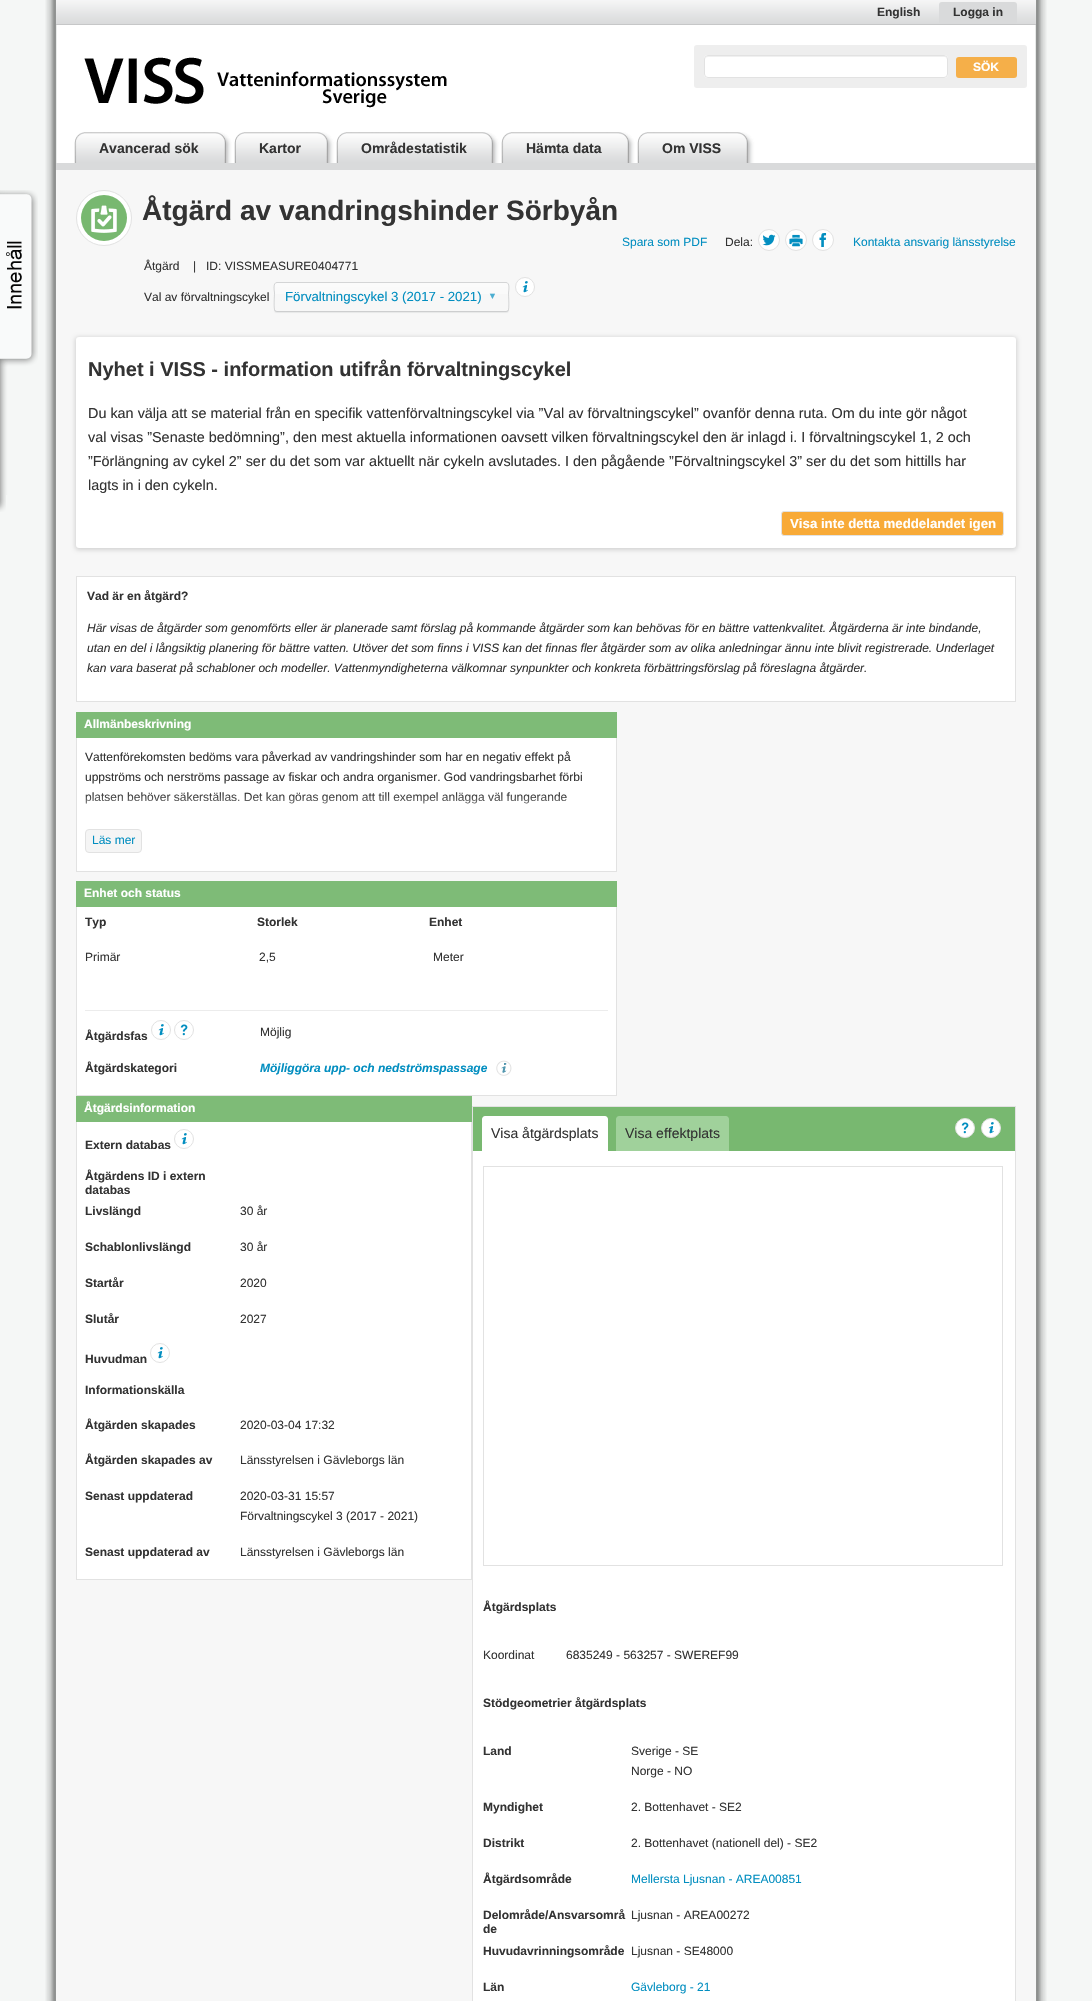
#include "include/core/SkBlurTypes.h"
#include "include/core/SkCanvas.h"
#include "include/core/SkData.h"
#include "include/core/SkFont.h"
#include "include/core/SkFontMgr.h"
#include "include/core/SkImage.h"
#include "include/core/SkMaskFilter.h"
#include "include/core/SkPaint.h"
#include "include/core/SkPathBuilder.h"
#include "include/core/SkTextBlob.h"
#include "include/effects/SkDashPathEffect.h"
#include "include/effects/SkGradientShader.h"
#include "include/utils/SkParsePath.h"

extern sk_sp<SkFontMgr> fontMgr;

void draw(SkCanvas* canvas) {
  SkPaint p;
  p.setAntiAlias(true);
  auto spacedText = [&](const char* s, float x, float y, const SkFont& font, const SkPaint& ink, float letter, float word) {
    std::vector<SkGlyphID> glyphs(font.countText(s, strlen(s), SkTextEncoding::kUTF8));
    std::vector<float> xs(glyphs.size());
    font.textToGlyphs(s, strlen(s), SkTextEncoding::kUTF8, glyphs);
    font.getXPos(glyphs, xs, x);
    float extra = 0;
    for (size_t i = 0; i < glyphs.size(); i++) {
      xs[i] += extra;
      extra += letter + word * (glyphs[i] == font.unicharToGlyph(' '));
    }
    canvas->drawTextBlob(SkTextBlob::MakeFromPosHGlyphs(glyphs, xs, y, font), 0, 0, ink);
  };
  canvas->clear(SkColorSetRGB(245, 247, 246));
  canvas->drawImageRect(SkImages::DeferredFromEncodedData(SkData::MakeFromFileName("images/1.png")), SkRect::MakeLTRB(45, 0, 1047, 2001), SkSamplingOptions());
  canvas->drawImageRect(SkImages::DeferredFromEncodedData(SkData::MakeFromFileName("images/2.png")), SkRect::MakeLTRB(56, 0, 1036, 25), SkSamplingOptions());
  p.setColor(SkColorSetRGB(217, 218, 219));
  canvas->drawRoundRect(SkRect::MakeLTRB(939, 2, 1017, 24), 3, 3, p);
  canvas->drawImageRect(SkImages::DeferredFromEncodedData(SkData::MakeFromFileName("images/3.png")), SkRect::MakeLTRB(84, 57, 447, 108), SkSamplingOptions());
  p.setColor(SkColorSetRGB(238, 238, 238));
  canvas->drawRoundRect(SkRect::MakeLTRB(694, 45, 1027, 88), 3, 3, p);
  p.setColor(SK_ColorWHITE);
  canvas->drawRoundRect(SkRect::MakeLTRB(704, 55, 948, 78), 4, 4, p);
  p.setColor(SkColorSetRGB(240, 240, 240));
  canvas->drawPath(SkPathBuilder().moveTo(708, 57).lineTo(945, 57).lineTo(947, 58).lineTo(947, 60).cubicTo(947, 58, 946, 56, 944, 56).lineTo(708, 56).cubicTo(706, 56, 705, 58, 705, 60).cubicTo(705, 58, 706, 57, 708, 57).close().detach(), p);
  p.setStyle(SkPaint::kStroke_Style);
  p.setStrokeWidth(1);
  p.setColor(SkColorSetRGB(226, 226, 226));
  canvas->drawRoundRect(SkRect::MakeLTRB(704.5f, 55.5f, 947.5f, 77.5f), 3.5f, 3.5f, p);
  p.setStyle(SkPaint::kFill_Style);
  p.setColor(SkColorSetRGB(245, 175, 73));
  canvas->drawRoundRect(SkRect::MakeLTRB(956, 57, 1017, 78), 3, 3, p);
  p.setColor(SkColorSetRGB(217, 218, 219));
  canvas->drawRect(SkRect::MakeLTRB(56, 163, 1036, 170), p);
  canvas->drawImageRect(SkImages::DeferredFromEncodedData(SkData::MakeFromFileName("images/4.png")), SkRect::MakeLTRB(74, 132, 84, 163), SkSamplingOptions());
  canvas->drawImageRect(SkImages::DeferredFromEncodedData(SkData::MakeFromFileName("images/5.png")), SkRect::MakeLTRB(84, 132, 234, 163), SkSamplingOptions());
  canvas->drawImageRect(SkImages::DeferredFromEncodedData(SkData::MakeFromFileName("images/6.png")), SkRect::MakeLTRB(234, 132, 244, 163), SkSamplingOptions());
  canvas->drawImageRect(SkImages::DeferredFromEncodedData(SkData::MakeFromFileName("images/7.png")), SkRect::MakeLTRB(244, 132, 336, 163), SkSamplingOptions());
  canvas->drawImageRect(SkImages::DeferredFromEncodedData(SkData::MakeFromFileName("images/6.png")), SkRect::MakeLTRB(336, 132, 346, 163), SkSamplingOptions());
  canvas->drawImageRect(SkImages::DeferredFromEncodedData(SkData::MakeFromFileName("images/8.png")), SkRect::MakeLTRB(346, 132, 501, 163), SkSamplingOptions());
  canvas->drawImageRect(SkImages::DeferredFromEncodedData(SkData::MakeFromFileName("images/4.png")), SkRect::MakeLTRB(501, 132, 511, 163), SkSamplingOptions());
  canvas->drawImageRect(SkImages::DeferredFromEncodedData(SkData::MakeFromFileName("images/9.png")), SkRect::MakeLTRB(511, 132, 637, 163), SkSamplingOptions());
  canvas->drawImageRect(SkImages::DeferredFromEncodedData(SkData::MakeFromFileName("images/6.png")), SkRect::MakeLTRB(637, 132, 647, 163), SkSamplingOptions());
  canvas->drawImageRect(SkImages::DeferredFromEncodedData(SkData::MakeFromFileName("images/10.png")), SkRect::MakeLTRB(647, 132, 756, 163), SkSamplingOptions());
  p.setColor(SkColorSetRGB(247, 247, 247));
  canvas->drawRect(SkRect::MakeLTRB(56, 170, 1036, 2001), p);
  canvas->drawImageRect(SkImages::DeferredFromEncodedData(SkData::MakeFromFileName("images/11.png")), SkRect::MakeLTRB(0, 495, 6, 512), SkSamplingOptions());
  canvas->drawImageRect(SkImages::DeferredFromEncodedData(SkData::MakeFromFileName("images/12.png")), SkRect::MakeLTRB(0, 190, 38, 495), SkSamplingOptions());
  p.setColor(SK_ColorWHITE);
  canvas->drawCircle(104, 218, 27.5f, p);
  p.setStyle(SkPaint::kStroke_Style);
  p.setColor(SkColorSetRGB(226, 226, 226));
  canvas->drawCircle(104, 218, 27.5f, p);
  p.setStyle(SkPaint::kFill_Style);
  p.setColor(SkColorSetRGB(120, 184, 112));
  canvas->drawCircle(104, 218, 23, p);
  canvas->drawImageRect(SkImages::DeferredFromEncodedData(SkData::MakeFromFileName("images/13.png")), SkRect::MakeLTRB(91, 205, 117, 233), SkSamplingOptions());
  p.setColor(SK_ColorWHITE);
  canvas->drawCircle(769, 240, 10.5f, p);
  p.setStyle(SkPaint::kStroke_Style);
  p.setColor(SkColorSetRGB(226, 226, 226));
  canvas->drawCircle(769, 240, 10.5f, p);
  canvas->drawImageRect(SkImages::DeferredFromEncodedData(SkData::MakeFromFileName("images/14.png")), SkRect::MakeLTRB(762, 234, 776, 246), SkSamplingOptions());
  p.setStyle(SkPaint::kFill_Style);
  p.setColor(SK_ColorWHITE);
  canvas->drawCircle(796, 240, 10.5f, p);
  p.setStyle(SkPaint::kStroke_Style);
  p.setColor(SkColorSetRGB(226, 226, 226));
  canvas->drawCircle(796, 240, 10.5f, p);
  canvas->drawImageRect(SkImages::DeferredFromEncodedData(SkData::MakeFromFileName("images/15.png")), SkRect::MakeLTRB(789, 234, 803, 247), SkSamplingOptions());
  p.setStyle(SkPaint::kFill_Style);
  p.setColor(SK_ColorWHITE);
  canvas->drawCircle(823, 240, 10.5f, p);
  p.setStyle(SkPaint::kStroke_Style);
  p.setColor(SkColorSetRGB(226, 226, 226));
  canvas->drawCircle(823, 240, 10.5f, p);
  canvas->drawImageRect(SkImages::DeferredFromEncodedData(SkData::MakeFromFileName("images/16.png")), SkRect::MakeLTRB(819, 233, 827, 247), SkSamplingOptions());
  p.setStyle(SkPaint::kFill_Style);
  p.setColor(SkColorSetARGB(18, 16, 22, 26));
  p.setMaskFilter(SkMaskFilter::MakeBlur(kNormal_SkBlurStyle, 0.5f));
  canvas->drawRoundRect(SkRect::MakeLTRB(274, 283, 509, 313), 3, 3, p);
  p.setMaskFilter(nullptr);
  p.setColor(SkColorSetRGB(247, 247, 247));
  canvas->drawRoundRect(SkRect::MakeLTRB(274, 282, 509, 312), 3, 3, p);
  {
    const SkColor colors[] = {SkColorSetRGB(251, 251, 251), SkColorSetRGB(247, 247, 247)};
    const float stops[] = {0, 1};
    const SkPoint ends[] = {{392, 283}, {392, 311}};
    p.setShader(SkGradientShader::MakeLinear(ends, colors, stops, 2, SkTileMode::kClamp));
    p.setAlpha(255);
  }
  canvas->drawRect(SkRect::MakeLTRB(275, 283, 508, 294), p);
  p.setStyle(SkPaint::kStroke_Style);
  p.setShader(nullptr);
  p.setColor(SkColorSetARGB(46, 16, 22, 26));
  canvas->drawPath(SkPathBuilder().moveTo(508, 311).lineTo(506, 311.5f).lineTo(277, 311.5f).lineTo(275, 311).detach(), p);
  p.setColor(SkColorSetARGB(38, 16, 22, 26));
  canvas->drawPath(SkPathBuilder().moveTo(275, 311).cubicTo(273.5f, 309, 274.5f, 296, 274.5f, 293).cubicTo(274.5f, 291.5f, 272.5f, 282.5f, 277, 282.5f).lineTo(506, 282.5f).cubicTo(510.5f, 282.5f, 508.5f, 291.5f, 508.5f, 293).cubicTo(508.5f, 296, 509.5f, 309, 508, 311).detach(), p);
  p.setStyle(SkPaint::kFill_Style);
  p.setColor(SK_ColorWHITE);
  canvas->drawCircle(525, 287, 9.5f, p);
  p.setStyle(SkPaint::kStroke_Style);
  p.setColor(SkColorSetRGB(226, 226, 226));
  canvas->drawCircle(525, 287, 9.5f, p);
  canvas->drawImageRect(SkImages::DeferredFromEncodedData(SkData::MakeFromFileName("images/17.png")), SkRect::MakeLTRB(522, 281, 528, 293), SkSamplingOptions());
  p.setStyle(SkPaint::kFill_Style);
  p.setColor(SkColorSetARGB(38, 0, 0, 0));
  p.setMaskFilter(SkMaskFilter::MakeBlur(kNormal_SkBlurStyle, 2));
  canvas->drawRoundRect(SkRect::MakeLTRB(75, 337, 1017, 550), 4, 4, p);
  p.setMaskFilter(nullptr);
  p.setColor(SK_ColorWHITE);
  canvas->drawRoundRect(SkRect::MakeLTRB(76, 337, 1016, 548), 3, 3, p);
  p.setColor(SkColorSetRGB(248, 170, 55));
  canvas->drawRoundRect(SkRect::MakeLTRB(781.5f, 511.5f, 1003.5f, 535.5f), 2.5f, 2.5f, p);
  p.setStyle(SkPaint::kStroke_Style);
  p.setColor(SkColorSetRGB(226, 226, 226));
  canvas->drawRoundRect(SkRect::MakeLTRB(781.5f, 511.5f, 1003.5f, 535.5f), 2.5f, 2.5f, p);
  p.setStyle(SkPaint::kFill_Style);
  p.setColor(SK_ColorWHITE);
  canvas->drawRect(SkRect::MakeLTRB(76.5f, 576.5f, 1015.5f, 701.5f), p);
  p.setStyle(SkPaint::kStroke_Style);
  p.setColor(SkColorSetRGB(226, 226, 226));
  canvas->drawRect(SkRect::MakeLTRB(76.5f, 576.5f, 1015.5f, 701.5f), p);
  p.setStyle(SkPaint::kFill_Style);
  p.setColor(SK_ColorWHITE);
  canvas->drawRect(SkRect::MakeLTRB(77, 738, 616, 871), p);
  p.setStyle(SkPaint::kStroke_Style);
  p.setColor(SkColorSetRGB(226, 226, 226));
  canvas->drawRect(SkRect::MakeLTRB(76.5f, 712.5f, 616.5f, 871.5f), p);
  p.setStyle(SkPaint::kFill_Style);
  p.setColor(SkColorSetRGB(126, 187, 119));
  canvas->drawRect(SkRect::MakeLTRB(76, 712, 617, 738), p);
  p.setColor(SkColorSetRGB(245, 245, 245));
  canvas->drawRoundRect(SkRect::MakeLTRB(85.5f, 829.5f, 141.5f, 852.5f), 3.5f, 3.5f, p);
  p.setStyle(SkPaint::kStroke_Style);
  p.setColor(SkColorSetRGB(226, 226, 226));
  canvas->drawRoundRect(SkRect::MakeLTRB(85.5f, 829.5f, 141.5f, 852.5f), 3.5f, 3.5f, p);
  p.setStyle(SkPaint::kFill_Style);
  p.setColor(SK_ColorWHITE);
  canvas->drawRect(SkRect::MakeLTRB(77, 907, 616, 1095), p);
  p.setColor(SkColorSetRGB(226, 226, 226));
  canvas->drawRect(SkRect::MakeLTRB(616, 907, 617, 1096), p);
  canvas->drawRect(SkRect::MakeLTRB(76, 1095, 617, 1096), p);
  canvas->drawRect(SkRect::MakeLTRB(76, 907, 77, 1096), p);
  p.setColor(SkColorSetRGB(126, 187, 119));
  canvas->drawRect(SkRect::MakeLTRB(76, 881, 617, 907), p);
  p.setColor(SkColorSetRGB(236, 236, 236));
  canvas->drawRect(SkRect::MakeLTRB(85, 1010, 608, 1011), p);
  p.setStyle(SkPaint::kStroke_Style);
  p.setColor(SkColorSetRGB(226, 226, 226));
  canvas->drawCircle(161, 1030, 9.5f, p);
  canvas->drawImageRect(SkImages::DeferredFromEncodedData(SkData::MakeFromFileName("images/17.png")), SkRect::MakeLTRB(158, 1024, 164, 1036), SkSamplingOptions());
  canvas->drawCircle(184, 1030, 9.5f, p);
  canvas->drawImageRect(SkImages::DeferredFromEncodedData(SkData::MakeFromFileName("images/18.png")), SkRect::MakeLTRB(180, 1024, 188, 1036), SkSamplingOptions());
  canvas->drawImageRect(SkImages::DeferredFromEncodedData(SkData::MakeFromFileName("images/19.png")), SkRect::MakeLTRB(496, 1060, 512, 1076), SkSamplingOptions());
  p.setStyle(SkPaint::kFill_Style);
  p.setColor(SK_ColorWHITE);
  canvas->drawRect(SkRect::MakeLTRB(77, 1122, 471, 1579), p);
  p.setStyle(SkPaint::kStroke_Style);
  p.setColor(SkColorSetRGB(226, 226, 226));
  canvas->drawRect(SkRect::MakeLTRB(76.5f, 1096.5f, 471.5f, 1579.5f), p);
  p.setStyle(SkPaint::kFill_Style);
  p.setColor(SkColorSetRGB(126, 187, 119));
  canvas->drawRect(SkRect::MakeLTRB(76, 1096, 472, 1122), p);
  p.setStyle(SkPaint::kStroke_Style);
  p.setColor(SkColorSetRGB(226, 226, 226));
  canvas->drawCircle(184, 1139, 9.5f, p);
  canvas->drawImageRect(SkImages::DeferredFromEncodedData(SkData::MakeFromFileName("images/17.png")), SkRect::MakeLTRB(181, 1133, 187, 1145), SkSamplingOptions());
  canvas->drawCircle(160, 1353, 9.5f, p);
  canvas->drawImageRect(SkImages::DeferredFromEncodedData(SkData::MakeFromFileName("images/17.png")), SkRect::MakeLTRB(157, 1347, 163, 1359), SkSamplingOptions());
  p.setStyle(SkPaint::kFill_Style);
  p.setColor(SK_ColorWHITE);
  canvas->drawRect(SkRect::MakeLTRB(473, 1151, 1015, 2001), p);
  p.setStyle(SkPaint::kStroke_Style);
  p.setColor(SkColorSetRGB(226, 226, 226));
  canvas->drawRect(SkRect::MakeLTRB(472.5f, 1106.5f, 1015.5f, 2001.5f), p);
  p.setStyle(SkPaint::kFill_Style);
  p.setColor(SkColorSetRGB(120, 184, 112));
  canvas->drawRect(SkRect::MakeLTRB(473, 1107, 1015, 1151), p);
  p.setColor(SK_ColorWHITE);
  canvas->drawPath(SkPathBuilder().moveTo(485, 1116).lineTo(605, 1116).cubicTo(606.5f, 1116, 608, 1117.5f, 608, 1119).lineTo(608, 1151).lineTo(482, 1151).lineTo(482, 1119).cubicTo(482, 1117.5f, 483.5f, 1116, 485, 1116).close().detach(), p);
  p.setColor(SkColorSetRGB(160, 209, 155));
  canvas->drawPath(SkPathBuilder().moveTo(619, 1116).lineTo(726, 1116).cubicTo(727.5f, 1116, 729, 1117.5f, 729, 1119).lineTo(729, 1151).lineTo(616, 1151).lineTo(616, 1119).cubicTo(616, 1117.5f, 617.5f, 1116, 619, 1116).close().detach(), p);
  p.setColor(SK_ColorWHITE);
  canvas->drawCircle(965, 1128, 9.5f, p);
  p.setStyle(SkPaint::kStroke_Style);
  p.setColor(SkColorSetRGB(226, 226, 226));
  canvas->drawCircle(965, 1128, 9.5f, p);
  canvas->drawImageRect(SkImages::DeferredFromEncodedData(SkData::MakeFromFileName("images/18.png")), SkRect::MakeLTRB(961, 1122, 969, 1134), SkSamplingOptions());
  p.setStyle(SkPaint::kFill_Style);
  p.setColor(SK_ColorWHITE);
  canvas->drawCircle(991, 1128, 9.5f, p);
  p.setStyle(SkPaint::kStroke_Style);
  p.setColor(SkColorSetRGB(226, 226, 226));
  canvas->drawCircle(991, 1128, 9.5f, p);
  canvas->drawImageRect(SkImages::DeferredFromEncodedData(SkData::MakeFromFileName("images/17.png")), SkRect::MakeLTRB(988, 1122, 994, 1134), SkSamplingOptions());
  canvas->drawRect(SkRect::MakeLTRB(483.5f, 1166.5f, 1002.5f, 1565.5f), p);
  SkFont font1(fontMgr->matchFamilyStyle("Liberation Sans", SkFontStyle::Bold()), 12);
  font1.setSubpixel(true);
  p.setStyle(SkPaint::kFill_Style);
  p.setColor(SkColorSetRGB(51, 51, 51));
  canvas->drawString("English", 877, 16, font1, p);
  canvas->drawString("Logga in", 953, 16, font1, p);
  p.setColor(SK_ColorWHITE);
  canvas->drawString("SÖK", 973, 71, font1, p);
  SkFont font2(fontMgr->matchFamilyStyle("Liberation Sans", SkFontStyle::Bold()), 14);
  font2.setSubpixel(true);
  p.setColor(SkColorSetRGB(51, 51, 51));
  canvas->drawString("Avancerad sök", 99, 153, font2, p);
  canvas->drawString("Kartor", 259, 153, font2, p);
  canvas->drawString("Områdestatistik", 361, 153, font2, p);
  canvas->drawString("Hämta data", 526, 153, font2, p);
  canvas->drawString("Om VISS", 662, 153, font2, p);
  SkFont font3(fontMgr->matchFamilyStyle("Liberation Sans", SkFontStyle::Bold()), 28);
  font3.setSubpixel(true);
  canvas->drawString("Åtgärd av vandringshinder Sörbyån", 142, 220, font3, p);
  SkFont font4(fontMgr->matchFamilyStyle("Liberation Sans", SkFontStyle::Normal()), 12);
  font4.setSubpixel(true);
  p.setColor(SkColorSetRGB(2, 142, 192));
  canvas->drawString("Spara som PDF", 622, 246, font4, p);
  p.setColor(SkColorSetRGB(51, 51, 51));
  canvas->drawString("Dela:", 725, 246, font4, p);
  p.setColor(SkColorSetRGB(2, 142, 192));
  canvas->drawString("Kontakta ansvarig länsstyrelse", 853, 246, font4, p);
  p.setColor(SkColorSetRGB(51, 51, 51));
  canvas->drawString("Åtgärd", 144, 270, font4, p);
  canvas->drawString("|", 193, 270, font4, p);
  canvas->drawString("ID: VISSMEASURE0404771", 206, 270, font4, p);
  canvas->drawString("Val av förvaltningscykel", 144, 301, font4, p);
  SkFont font5(fontMgr->matchFamilyStyle("Liberation Sans", SkFontStyle::Normal()), 13.25f);
  font5.setSubpixel(true);
  p.setColor(SkColorSetRGB(2, 142, 192));
  canvas->drawString("Förvaltningscykel 3 (2017 - 2021)", 285, 301, font5, p);
  SkFont font6(fontMgr->matchFamilyStyle("Liberation Sans", SkFontStyle::Normal()), 9);
  font6.setSubpixel(true);
  p.setColor(SkColorSetRGB(76, 174, 209));
  spacedText("▼", 488, 299, font6, p, 2, 0);
  SkFont font7(fontMgr->matchFamilyStyle("Liberation Sans", SkFontStyle::Bold()), 20);
  font7.setSubpixel(true);
  p.setColor(SkColorSetRGB(51, 51, 51));
  canvas->drawString("Nyhet i VISS - information utifrån förvaltningscykel", 88, 376, font7, p);
  SkFont font8(fontMgr->matchFamilyStyle("Liberation Sans", SkFontStyle::Normal()), 14.4f);
  font8.setSubpixel(true);
  canvas->drawString("Du kan välja att se material från en specifik vattenförvaltningscykel via ”Val av förvaltningscykel” ovanför denna ruta. Om du inte gör något", 88, 418, font8, p);
  canvas->drawString("val visas ”Senaste bedömning”, den mest aktuella informationen oavsett vilken förvaltningscykel den är inlagd i. I förvaltningscykel 1, 2 och", 88, 442, font8, p);
  canvas->drawString("”Förlängning av cykel 2” ser du det som var aktuellt när cykeln avslutades. I den pågående ”Förvaltningscykel 3” ser du det som hittills har", 88, 466, font8, p);
  canvas->drawString("lagts in i den cykeln.", 88, 490, font8, p);
  SkFont font9(fontMgr->matchFamilyStyle("Liberation Sans", SkFontStyle::Bold()), 13.25f);
  font9.setSubpixel(true);
  p.setColor(SK_ColorWHITE);
  canvas->drawString("Visa inte detta meddelandet igen", 790, 528, font9, p);
  p.setColor(SkColorSetRGB(51, 51, 51));
  canvas->drawString("Vad är en åtgärd?", 87, 600, font1, p);
  SkFont font10(fontMgr->matchFamilyStyle("Liberation Sans", SkFontStyle::Italic()), 12);
  font10.setSubpixel(true);
  canvas->drawString("Här visas de åtgärder som genomförts eller är planerade samt förslag på kommande åtgärder som kan behövas för en bättre vattenkvalitet. Åtgärderna är inte bindande,", 87, 632, font10, p);
  canvas->drawString("utan en del i långsiktig planering för bättre vatten. Utöver det som finns i VISS kan det finnas fler åtgärder som av olika anledningar ännu inte blivit registrerade. Underlaget", 87, 652, font10, p);
  canvas->drawString("kan vara baserat på schabloner och modeller. Vattenmyndigheterna välkomnar synpunkter och konkreta förbättringsförslag på föreslagna åtgärder.", 87, 672, font10, p);
  p.setColor(SK_ColorWHITE);
  canvas->drawString("Allmänbeskrivning", 84, 728, font1, p);
  p.setColor(SkColorSetRGB(51, 51, 51));
  canvas->drawString("Vattenförekomsten bedöms vara påverkad av vandringshinder som har en negativ effekt på", 85, 761, font4, p);
  canvas->drawString("uppströms och nerströms passage av fiskar och andra organismer. God vandringsbarhet förbi", 85, 781, font4, p);
  canvas->drawString("platsen behöver säkerställas. Det kan göras genom att till exempel anlägga väl fungerande", 85, 801, font4, p);
  {
    const SkColor colors[] = {SkColorSetARGB(0, 255, 255, 255), SK_ColorWHITE};
    const float stops[] = {0.6f, 1};
    const SkPoint ends[] = {{347, 748}, {347, 824}};
    p.setShader(SkGradientShader::MakeLinear(ends, colors, stops, 2, SkTileMode::kClamp));
    p.setAlpha(255);
  }
  canvas->drawRect(SkRect::MakeLTRB(85, 794, 567, 804), p);
  p.setShader(nullptr);
  p.setColor(SkColorSetRGB(2, 142, 192));
  canvas->drawString("Läs mer", 92, 844, font4, p);
  p.setColor(SK_ColorWHITE);
  canvas->drawString("Enhet och status", 84, 897, font1, p);
  p.setColor(SkColorSetRGB(51, 51, 51));
  canvas->drawString("Typ", 85, 926, font1, p);
  canvas->drawString("Storlek", 257, 926, font1, p);
  canvas->drawString("Enhet", 429, 926, font1, p);
  canvas->drawString("Primär", 85, 961, font4, p);
  canvas->drawString("2,5", 259, 961, font4, p);
  canvas->drawString("Meter", 433, 961, font4, p);
  canvas->drawString("Åtgärdsfas", 85, 1040, font1, p);
  canvas->drawString("Möjlig", 260, 1036, font4, p);
  canvas->drawString("Åtgärdskategori", 85, 1072, font1, p);
  SkFont font11(fontMgr->matchFamilyStyle("Liberation Sans", SkFontStyle::BoldItalic()), 12);
  font11.setSubpixel(true);
  p.setColor(SkColorSetRGB(2, 142, 192));
  canvas->drawString("Möjliggöra upp- och nedströmspassage", 260, 1072, font11, p);
  p.setColor(SK_ColorWHITE);
  canvas->drawString("Åtgärdsinformation", 84, 1112, font1, p);
  p.setColor(SkColorSetRGB(51, 51, 51));
  canvas->drawString("Extern databas", 85, 1149, font1, p);
  canvas->drawString("Åtgärdens ID i extern", 85, 1180, font1, p);
  canvas->drawString("databas", 85, 1194, font1, p);
  canvas->drawString("Livslängd", 85, 1215, font1, p);
  canvas->drawString("30 år", 240, 1215, font4, p);
  canvas->drawString("Schablonlivslängd", 85, 1251, font1, p);
  canvas->drawString("30 år", 240, 1251, font4, p);
  canvas->drawString("Startår", 85, 1287, font1, p);
  canvas->drawString("2020", 240, 1287, font4, p);
  canvas->drawString("Slutår", 85, 1323, font1, p);
  canvas->drawString("2027", 240, 1323, font4, p);
  canvas->drawString("Huvudman", 85, 1363, font1, p);
  canvas->drawString("Informationskälla", 85, 1394, font1, p);
  canvas->drawString("Åtgärden skapades", 85, 1429, font1, p);
  canvas->drawString("2020-03-04 17:32", 240, 1429, font4, p);
  canvas->drawString("Åtgärden skapades av", 85, 1464, font1, p);
  canvas->drawString("Länsstyrelsen i Gävleborgs län", 240, 1464, font4, p);
  canvas->drawString("Senast uppdaterad", 85, 1500, font1, p);
  canvas->drawString("2020-03-31 15:57", 240, 1500, font4, p);
  canvas->drawString("Förvaltningscykel 3 (2017 - 2021)", 240, 1520, font4, p);
  canvas->drawString("Senast uppdaterad av", 85, 1556, font1, p);
  canvas->drawString("Länsstyrelsen i Gävleborgs län", 240, 1556, font4, p);
  SkFont font12(fontMgr->matchFamilyStyle("Liberation Sans", SkFontStyle::Normal()), 14);
  font12.setSubpixel(true);
  canvas->drawString("Visa åtgärdsplats", 491, 1138, font12, p);
  canvas->drawString("Visa effektplats", 625, 1138, font12, p);
  canvas->drawString("Åtgärdsplats", 483, 1611, font1, p);
  canvas->drawString("Koordinat", 483, 1659, font4, p);
  canvas->drawString("6835249 - 563257 - SWEREF99", 566, 1659, font4, p);
  canvas->drawString("Stödgeometrier åtgärdsplats", 483, 1707, font1, p);
  canvas->drawString("Land", 483, 1755, font1, p);
  canvas->drawString("Sverige - SE", 631, 1755, font4, p);
  canvas->drawString("Norge - NO", 631, 1775, font4, p);
  canvas->drawString("Myndighet", 483, 1811, font1, p);
  canvas->drawString("2. Bottenhavet - SE2", 631, 1811, font4, p);
  canvas->drawString("Distrikt", 483, 1847, font1, p);
  canvas->drawString("2. Bottenhavet (nationell del) - SE2", 631, 1847, font4, p);
  canvas->drawString("Åtgärdsområde", 483, 1883, font1, p);
  p.setColor(SkColorSetRGB(2, 142, 192));
  canvas->drawString("Mellersta Ljusnan - AREA00851", 631, 1883, font4, p);
  p.setColor(SkColorSetRGB(51, 51, 51));
  canvas->drawString("Delområde/Ansvarsområ", 483, 1919, font1, p);
  canvas->drawString("de", 483, 1933, font1, p);
  canvas->drawString("Ljusnan - AREA00272", 631, 1919, font4, p);
  canvas->drawString("Huvudavrinningsområde", 483, 1955, font1, p);
  canvas->drawString("Ljusnan - SE48000", 631, 1955, font4, p);
  canvas->drawString("Län", 483, 1991, font1, p);
  p.setColor(SkColorSetRGB(2, 142, 192));
  canvas->drawString("Gävleborg - 21", 631, 1991, font4, p);
}
